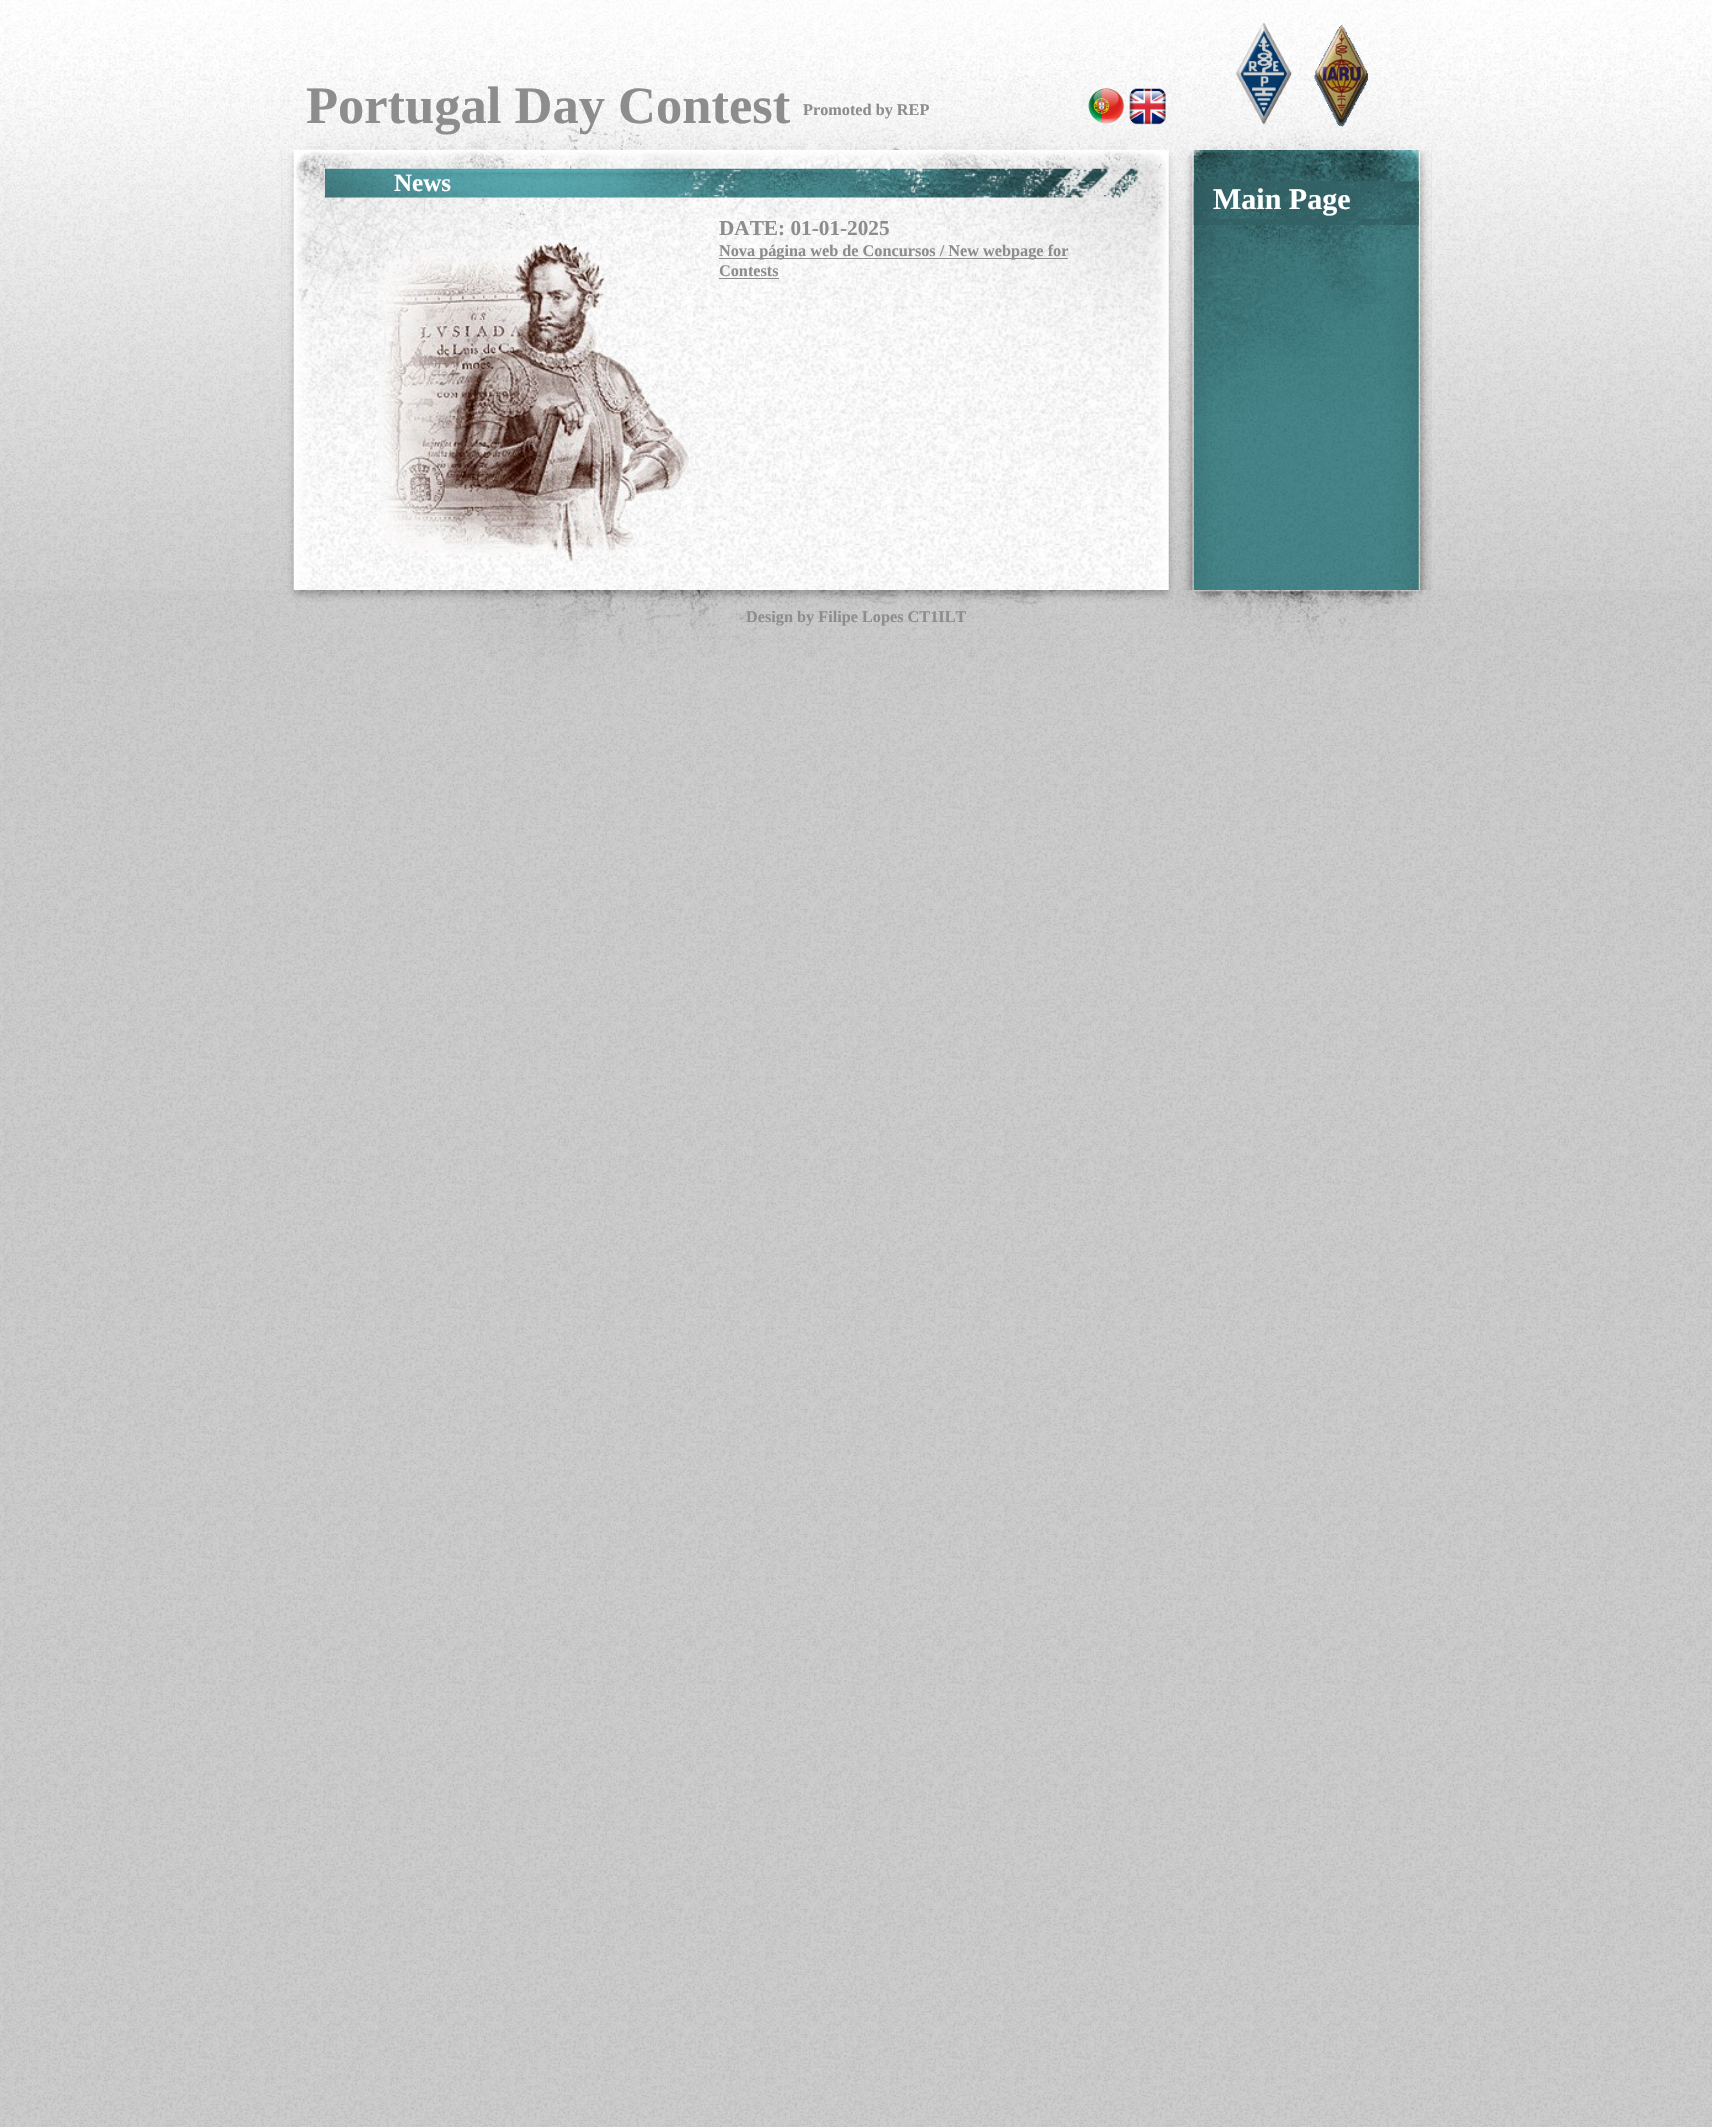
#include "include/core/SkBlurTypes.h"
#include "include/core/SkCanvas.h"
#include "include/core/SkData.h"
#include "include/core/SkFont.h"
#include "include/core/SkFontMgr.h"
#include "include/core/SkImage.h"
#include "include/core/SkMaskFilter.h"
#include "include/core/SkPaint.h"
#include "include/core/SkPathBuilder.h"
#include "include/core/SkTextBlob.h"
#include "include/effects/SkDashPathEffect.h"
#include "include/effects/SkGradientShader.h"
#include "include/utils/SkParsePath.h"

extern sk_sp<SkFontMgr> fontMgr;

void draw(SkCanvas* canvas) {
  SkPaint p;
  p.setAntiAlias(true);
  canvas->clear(SK_ColorWHITE);
  canvas->drawImageRect(SkImages::DeferredFromEncodedData(SkData::MakeFromFileName("images/1.png")), SkRect::MakeLTRB(0, 590, 1712, 2127), SkSamplingOptions());
  canvas->drawImageRect(SkImages::DeferredFromEncodedData(SkData::MakeFromFileName("images/2.png")), SkRect::MakeLTRB(0, 0, 1712, 590), SkSamplingOptions());
  canvas->drawImageRect(SkImages::DeferredFromEncodedData(SkData::MakeFromFileName("images/3.png")), SkRect::MakeLTRB(281, 0, 1432, 150), SkSamplingOptions());
  canvas->drawImageRect(SkImages::DeferredFromEncodedData(SkData::MakeFromFileName("images/4.png")), SkRect::MakeLTRB(1088, 88, 1125, 124), SkSamplingOptions());
  canvas->drawImageRect(SkImages::DeferredFromEncodedData(SkData::MakeFromFileName("images/5.png")), SkRect::MakeLTRB(1129, 88, 1166, 125), SkSamplingOptions());
  canvas->drawImageRect(SkImages::DeferredFromEncodedData(SkData::MakeFromFileName("images/6.png")), SkRect::MakeLTRB(1236, 23, 1292, 125), SkSamplingOptions());
  canvas->drawImageRect(SkImages::DeferredFromEncodedData(SkData::MakeFromFileName("images/7.png")), SkRect::MakeLTRB(1314, 25, 1368, 127), SkSamplingOptions());
  canvas->drawImageRect(SkImages::DeferredFromEncodedData(SkData::MakeFromFileName("images/8.png")), SkRect::MakeLTRB(281, 150, 1432, 590), SkSamplingOptions());
  canvas->drawImageRect(SkImages::DeferredFromEncodedData(SkData::MakeFromFileName("images/9.png")), SkRect::MakeLTRB(281, 150, 1432, 590), SkSamplingOptions());
  canvas->drawImageRect(SkImages::DeferredFromEncodedData(SkData::MakeFromFileName("images/10.png")), SkRect::MakeLTRB(325, 168, 1138, 198), SkSamplingOptions());
  canvas->drawImageRect(SkImages::DeferredFromEncodedData(SkData::MakeFromFileName("images/11.png")), SkRect::MakeLTRB(376, 236, 692, 564), SkSamplingOptions());
  p.setColor(SkColorSetRGB(141, 141, 141));
  canvas->drawRect(SkRect::MakeLTRB(719, 258, 1068, 259), p);
  canvas->drawRect(SkRect::MakeLTRB(719, 278, 779, 279), p);
  canvas->drawImageRect(SkImages::DeferredFromEncodedData(SkData::MakeFromFileName("images/12.png")), SkRect::MakeLTRB(1193, 181, 1419, 225), SkSamplingOptions());
  canvas->drawImageRect(SkImages::DeferredFromEncodedData(SkData::MakeFromFileName("images/13.png")), SkRect::MakeLTRB(281, 590, 1432, 715), SkSamplingOptions());
  SkFont font1(fontMgr->matchFamilyStyle("Liberation Serif", SkFontStyle::Bold()), 52.5f);
  font1.setSubpixel(true);
  canvas->drawString("Portugal Day Contest", 306, 123, font1, p);
  SkFont font2(fontMgr->matchFamilyStyle("Liberation Serif", SkFontStyle::Bold()), 16.25f);
  font2.setSubpixel(true);
  canvas->drawString("Promoted by REP", 803, 115, font2, p);
  SkFont font3(fontMgr->matchFamilyStyle("Liberation Serif", SkFontStyle::Bold()), 25);
  font3.setSubpixel(true);
  p.setColor(SK_ColorWHITE);
  canvas->drawString("News", 394, 191, font3, p);
  SkFont font4(fontMgr->matchFamilyStyle("Liberation Serif", SkFontStyle::Bold()), 21.25f);
  font4.setSubpixel(true);
  p.setColor(SkColorSetRGB(141, 141, 141));
  canvas->drawString("DATE: 01-01-2025", 719, 235, font4, p);
  canvas->drawString("Nova página web de Concursos / New webpage for", 719, 256, font2, p);
  canvas->drawString("Contests", 719, 276, font2, p);
  SkFont font5(fontMgr->matchFamilyStyle("Liberation Serif", SkFontStyle::Bold()), 30);
  font5.setSubpixel(true);
  p.setColor(SK_ColorWHITE);
  canvas->drawString("Main Page", 1213, 209, font5, p);
  p.setColor(SkColorSetRGB(141, 141, 141));
  canvas->drawString("Design by Filipe Lopes CT1ILT", 746, 622, font2, p);
}
